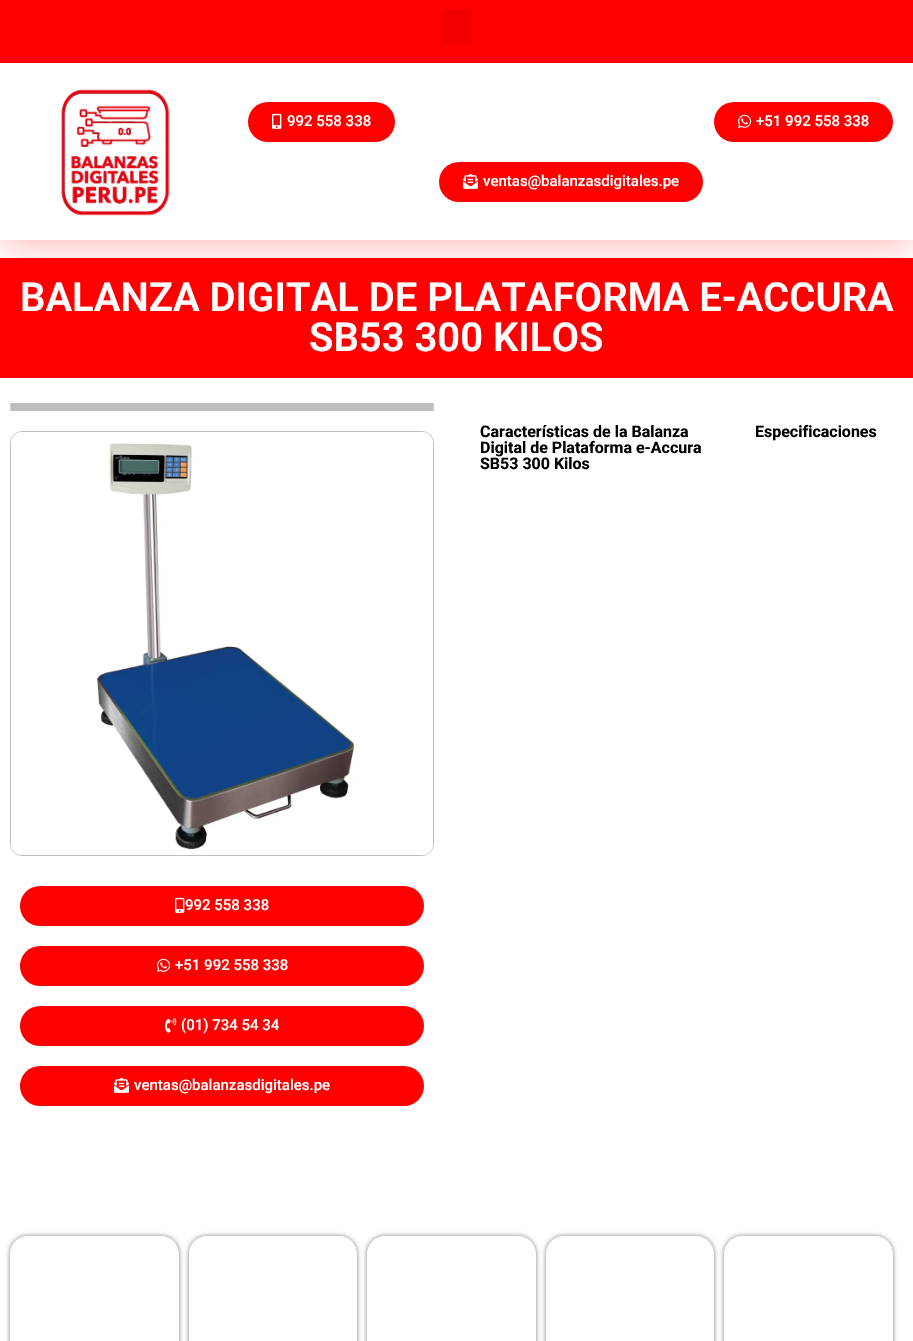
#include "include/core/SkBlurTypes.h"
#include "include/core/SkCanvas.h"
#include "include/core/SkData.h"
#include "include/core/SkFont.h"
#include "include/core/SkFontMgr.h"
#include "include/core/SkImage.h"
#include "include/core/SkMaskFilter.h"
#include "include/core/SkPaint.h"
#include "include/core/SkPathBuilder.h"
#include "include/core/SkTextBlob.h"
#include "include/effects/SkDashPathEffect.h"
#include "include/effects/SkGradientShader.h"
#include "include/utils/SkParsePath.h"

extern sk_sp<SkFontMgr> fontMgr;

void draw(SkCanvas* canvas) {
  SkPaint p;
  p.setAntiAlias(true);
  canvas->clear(SK_ColorWHITE);
  p.setColor(SkColorSetRGB(255, 0, 0));
  canvas->drawRect(SkRect::MakeLTRB(0, 0, 913, 63), p);
  p.setColor(SkColorSetRGB(242, 0, 0));
  canvas->drawRoundRect(SkRect::MakeLTRB(442, 10, 471, 43), 3, 3, p);
  canvas->save();
  canvas->clipPath(SkPathBuilder(SkPathFillType::kEvenOdd).moveTo(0, 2).lineTo(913, 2).lineTo(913, 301).lineTo(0, 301).close().moveTo(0, 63).lineTo(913, 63).lineTo(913, 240).lineTo(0, 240).close().detach(), true);
  p.setColor(SkColorSetARGB(89, 255, 0, 0));
  p.setMaskFilter(SkMaskFilter::MakeBlur(kNormal_SkBlurStyle, 20));
  canvas->drawRect(SkRect::MakeLTRB(0, 63, 913, 240), p);
  p.setMaskFilter(nullptr);
  canvas->restore();
  canvas->drawImageRect(SkImages::DeferredFromEncodedData(SkData::MakeFromFileName("images/1.png")), SkRect::MakeLTRB(61, 89, 170, 216), SkSamplingOptions());
  p.setColor(SkColorSetRGB(255, 0, 0));
  canvas->drawRoundRect(SkRect::MakeLTRB(248, 102, 395, 142), 20, 20, p);
  canvas->drawImageRect(SkImages::DeferredFromEncodedData(SkData::MakeFromFileName("images/2.png")), SkRect::MakeLTRB(272, 113, 282, 129), SkSamplingOptions());
  canvas->drawRoundRect(SkRect::MakeLTRB(714, 102, 893, 142), 20, 20, p);
  canvas->drawImageRect(SkImages::DeferredFromEncodedData(SkData::MakeFromFileName("images/3.png")), SkRect::MakeLTRB(738, 114, 752, 128), SkSamplingOptions());
  canvas->drawRoundRect(SkRect::MakeLTRB(439, 162, 703, 202), 20, 20, p);
  canvas->drawImageRect(SkImages::DeferredFromEncodedData(SkData::MakeFromFileName("images/4.png")), SkRect::MakeLTRB(463, 173, 478, 189), SkSamplingOptions());
  canvas->drawRect(SkRect::MakeLTRB(0, 258, 913, 378), p);
  p.setColor(SkColorSetRGB(190, 190, 190));
  canvas->drawRoundRect(SkRect::MakeLTRB(10, 403, 434, 405), 1, 1, p);
  canvas->drawRoundRect(SkRect::MakeLTRB(10, 405, 434, 407), 1, 1, p);
  canvas->drawRoundRect(SkRect::MakeLTRB(10, 407, 434, 409), 1, 1, p);
  canvas->drawRoundRect(SkRect::MakeLTRB(10, 409, 434, 411), 1, 1, p);
  p.setStyle(SkPaint::kStroke_Style);
  p.setStrokeWidth(1);
  canvas->drawRoundRect(SkRect::MakeLTRB(10.5f, 431.5f, 433.5f, 855.5f), 11.5f, 11.5f, p);
  canvas->drawImageRect(SkImages::DeferredFromEncodedData(SkData::MakeFromFileName("images/5.png")), SkRect::MakeLTRB(11, 432, 433, 855), SkSamplingOptions());
  p.setStyle(SkPaint::kFill_Style);
  p.setColor(SkColorSetRGB(255, 0, 0));
  canvas->drawRoundRect(SkRect::MakeLTRB(20, 886, 424, 926), 20, 20, p);
  canvas->drawImageRect(SkImages::DeferredFromEncodedData(SkData::MakeFromFileName("images/2.png")), SkRect::MakeLTRB(175, 897, 185, 913), SkSamplingOptions());
  canvas->drawRoundRect(SkRect::MakeLTRB(20, 946, 424, 986), 20, 20, p);
  canvas->drawImageRect(SkImages::DeferredFromEncodedData(SkData::MakeFromFileName("images/3.png")), SkRect::MakeLTRB(157, 958, 171, 972), SkSamplingOptions());
  canvas->drawRoundRect(SkRect::MakeLTRB(20, 1006, 424, 1046), 20, 20, p);
  canvas->drawImageRect(SkImages::DeferredFromEncodedData(SkData::MakeFromFileName("images/6.png")), SkRect::MakeLTRB(165, 1017, 177, 1033), SkSamplingOptions());
  canvas->drawRoundRect(SkRect::MakeLTRB(20, 1066, 424, 1106), 20, 20, p);
  canvas->drawImageRect(SkImages::DeferredFromEncodedData(SkData::MakeFromFileName("images/4.png")), SkRect::MakeLTRB(114, 1077, 129, 1093), SkSamplingOptions());
  canvas->save();
  canvas->clipPath(SkPathBuilder(SkPathFillType::kEvenOdd).moveTo(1, 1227).lineTo(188, 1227).lineTo(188, 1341).lineTo(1, 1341).close().moveTo(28, 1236).lineTo(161, 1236).cubicTo(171, 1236, 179, 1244, 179, 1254).lineTo(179, 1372).cubicTo(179, 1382, 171, 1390, 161, 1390).lineTo(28, 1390).cubicTo(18, 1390, 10, 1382, 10, 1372).lineTo(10, 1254).cubicTo(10, 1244, 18, 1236, 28, 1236).close().detach(), true);
  p.setColor(SkColorSetARGB(128, 0, 0, 0));
  p.setMaskFilter(SkMaskFilter::MakeBlur(kNormal_SkBlurStyle, 2.5f));
  canvas->drawRoundRect(SkRect::MakeLTRB(10, 1236, 179, 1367), 18, 18, p);
  p.setMaskFilter(nullptr);
  canvas->restore();
  canvas->save();
  canvas->clipPath(SkPathBuilder(SkPathFillType::kEvenOdd).moveTo(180, 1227).lineTo(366, 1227).lineTo(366, 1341).lineTo(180, 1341).close().moveTo(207, 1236).lineTo(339, 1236).cubicTo(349, 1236, 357, 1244, 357, 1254).lineTo(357, 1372).cubicTo(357, 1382, 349, 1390, 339, 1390).lineTo(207, 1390).cubicTo(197, 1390, 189, 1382, 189, 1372).lineTo(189, 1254).cubicTo(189, 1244, 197, 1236, 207, 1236).close().detach(), true);
  p.setMaskFilter(SkMaskFilter::MakeBlur(kNormal_SkBlurStyle, 2.5f));
  canvas->drawRoundRect(SkRect::MakeLTRB(189, 1236, 357, 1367), 18, 18, p);
  p.setMaskFilter(nullptr);
  canvas->restore();
  canvas->save();
  canvas->clipPath(SkPathBuilder(SkPathFillType::kEvenOdd).moveTo(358, 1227).lineTo(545, 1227).lineTo(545, 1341).lineTo(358, 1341).close().moveTo(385, 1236).lineTo(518, 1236).cubicTo(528, 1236, 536, 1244, 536, 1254).lineTo(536, 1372).cubicTo(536, 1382, 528, 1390, 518, 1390).lineTo(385, 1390).cubicTo(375, 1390, 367, 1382, 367, 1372).lineTo(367, 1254).cubicTo(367, 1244, 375, 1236, 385, 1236).close().detach(), true);
  p.setMaskFilter(SkMaskFilter::MakeBlur(kNormal_SkBlurStyle, 2.5f));
  canvas->drawRoundRect(SkRect::MakeLTRB(367, 1236, 536, 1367), 18, 18, p);
  p.setMaskFilter(nullptr);
  canvas->restore();
  canvas->save();
  canvas->clipPath(SkPathBuilder(SkPathFillType::kEvenOdd).moveTo(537, 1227).lineTo(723, 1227).lineTo(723, 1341).lineTo(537, 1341).close().moveTo(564, 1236).lineTo(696, 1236).cubicTo(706, 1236, 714, 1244, 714, 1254).lineTo(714, 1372).cubicTo(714, 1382, 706, 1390, 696, 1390).lineTo(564, 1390).cubicTo(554, 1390, 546, 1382, 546, 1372).lineTo(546, 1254).cubicTo(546, 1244, 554, 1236, 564, 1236).close().detach(), true);
  p.setMaskFilter(SkMaskFilter::MakeBlur(kNormal_SkBlurStyle, 2.5f));
  canvas->drawRoundRect(SkRect::MakeLTRB(546, 1236, 714, 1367), 18, 18, p);
  p.setMaskFilter(nullptr);
  canvas->restore();
  canvas->save();
  canvas->clipPath(SkPathBuilder(SkPathFillType::kEvenOdd).moveTo(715, 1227).lineTo(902, 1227).lineTo(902, 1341).lineTo(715, 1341).close().moveTo(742, 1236).lineTo(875, 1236).cubicTo(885, 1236, 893, 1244, 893, 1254).lineTo(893, 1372).cubicTo(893, 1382, 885, 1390, 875, 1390).lineTo(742, 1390).cubicTo(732, 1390, 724, 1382, 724, 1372).lineTo(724, 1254).cubicTo(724, 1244, 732, 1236, 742, 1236).close().detach(), true);
  p.setMaskFilter(SkMaskFilter::MakeBlur(kNormal_SkBlurStyle, 2.5f));
  canvas->drawRoundRect(SkRect::MakeLTRB(724, 1236, 893, 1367), 18, 18, p);
  p.setMaskFilter(nullptr);
  canvas->restore();
  SkFont font1(fontMgr->matchFamilyStyle("Roboto", SkFontStyle(500, SkFontStyle::kNormal_Width, SkFontStyle::kUpright_Slant)), 15);
  font1.setSubpixel(true);
  p.setColor(SK_ColorWHITE);
  canvas->drawString("992 558 338", 287, 126, font1, p);
  canvas->drawString("+51 992 558 338", 756, 126, font1, p);
  canvas->drawString("ventas@balanzasdigitales.pe", 483, 186, font1, p);
  SkFont font2(fontMgr->matchFamilyStyle("Roboto", SkFontStyle(600, SkFontStyle::kNormal_Width, SkFontStyle::kUpright_Slant)), 40);
  font2.setSubpixel(true);
  canvas->drawString("BALANZA DIGITAL DE PLATAFORMA E-ACCURA", 20, 311, font2, p);
  canvas->drawString("SB53 300 KILOS", 309, 351, font2, p);
  SkFont font3(fontMgr->matchFamilyStyle("Roboto", SkFontStyle::Bold()), 16);
  font3.setSubpixel(true);
  p.setColor(SK_ColorBLACK);
  canvas->drawString("Características de la Balanza", 480, 437, font3, p);
  canvas->drawString("Digital de Plataforma e-Accura", 480, 453, font3, p);
  canvas->drawString("SB53 300 Kilos", 480, 469, font3, p);
  canvas->drawString("Especificaciones", 755, 437, font3, p);
  p.setColor(SK_ColorWHITE);
  canvas->drawString("992 558 338", 185, 910, font1, p);
  canvas->drawString("+51 992 558 338", 175, 970, font1, p);
  canvas->drawString("(01) 734 54 34", 181, 1030, font1, p);
  canvas->drawString("ventas@balanzasdigitales.pe", 134, 1090, font1, p);
}
